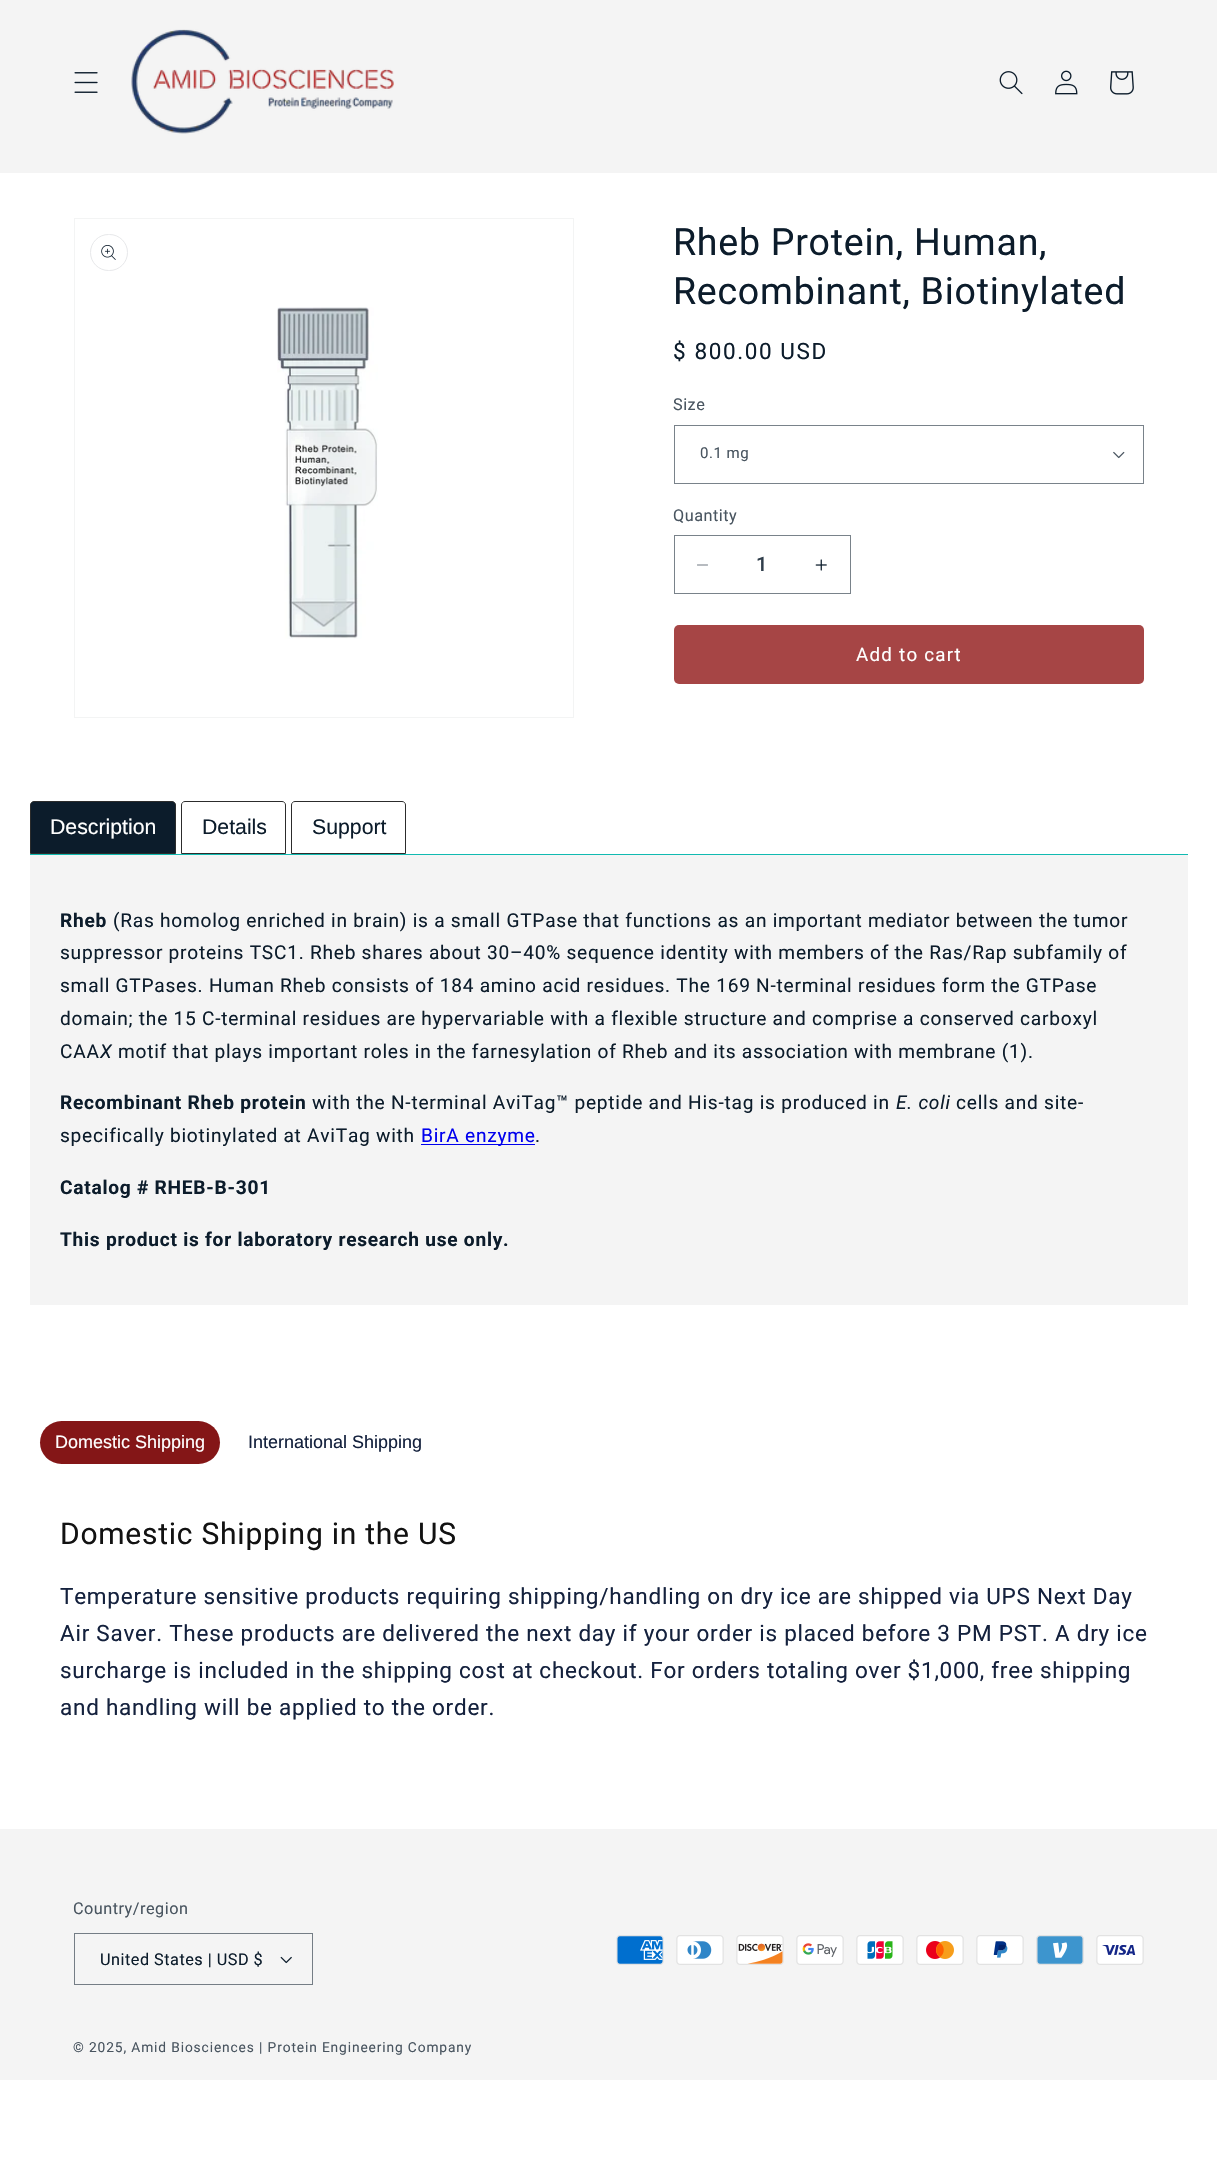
#include "include/core/SkBlurTypes.h"
#include "include/core/SkCanvas.h"
#include "include/core/SkData.h"
#include "include/core/SkFont.h"
#include "include/core/SkFontMgr.h"
#include "include/core/SkImage.h"
#include "include/core/SkMaskFilter.h"
#include "include/core/SkPaint.h"
#include "include/core/SkPathBuilder.h"
#include "include/core/SkTextBlob.h"
#include "include/effects/SkDashPathEffect.h"
#include "include/effects/SkGradientShader.h"
#include "include/utils/SkParsePath.h"

extern sk_sp<SkFontMgr> fontMgr;

void draw(SkCanvas* canvas) {
  SkPaint p;
  p.setAntiAlias(true);
  auto spacedText = [&](const char* s, float x, float y, const SkFont& font, const SkPaint& ink, float letter, float word) {
    std::vector<SkGlyphID> glyphs(font.countText(s, strlen(s), SkTextEncoding::kUTF8));
    std::vector<float> xs(glyphs.size());
    font.textToGlyphs(s, strlen(s), SkTextEncoding::kUTF8, glyphs);
    font.getXPos(glyphs, xs, x);
    float extra = 0;
    for (size_t i = 0; i < glyphs.size(); i++) {
      xs[i] += extra;
      extra += letter + word * (glyphs[i] == font.unicharToGlyph(' '));
    }
    canvas->drawTextBlob(SkTextBlob::MakeFromPosHGlyphs(glyphs, xs, y, font), 0, 0, ink);
  };
  canvas->clear(SK_ColorWHITE);
  p.setColor(SkColorSetRGB(244, 244, 244));
  canvas->drawRect(SkRect::MakeLTRB(0, 0, 1217, 173), p);
  canvas->drawImageRect(SkImages::DeferredFromEncodedData(SkData::MakeFromFileName("images/1.png")), SkRect::MakeLTRB(74, 72, 98, 93), SkSamplingOptions());
  canvas->drawImageRect(SkImages::DeferredFromEncodedData(SkData::MakeFromFileName("images/2.png")), SkRect::MakeLTRB(131, 29, 394, 134), SkSamplingOptions());
  canvas->drawImageRect(SkImages::DeferredFromEncodedData(SkData::MakeFromFileName("images/3.png")), SkRect::MakeLTRB(999, 71, 1023, 95), SkSamplingOptions());
  canvas->drawImageRect(SkImages::DeferredFromEncodedData(SkData::MakeFromFileName("images/4.png")), SkRect::MakeLTRB(1055, 70, 1078, 95), SkSamplingOptions());
  canvas->drawImageRect(SkImages::DeferredFromEncodedData(SkData::MakeFromFileName("images/5.png")), SkRect::MakeLTRB(1110, 71, 1134, 95), SkSamplingOptions());
  p.setStyle(SkPaint::kStroke_Style);
  p.setStrokeWidth(1);
  p.setColor(SkColorSetRGB(243, 244, 244));
  canvas->drawRect(SkRect::MakeLTRB(74.5f, 218.5f, 573.5f, 717.5f), p);
  p.setColor(SkColorSetRGB(231, 232, 234));
  canvas->drawRoundRect(SkRect::MakeLTRB(90.5f, 234.5f, 127.5f, 270.5f), 18, 18, p);
  canvas->drawImageRect(SkImages::DeferredFromEncodedData(SkData::MakeFromFileName("images/6.png")), SkRect::MakeLTRB(101, 245, 116, 260), SkSamplingOptions());
  canvas->drawImageRect(SkImages::DeferredFromEncodedData(SkData::MakeFromFileName("images/7.png")), SkRect::MakeLTRB(277, 307, 378, 639), SkSamplingOptions());
  canvas->drawImageRect(SkImages::DeferredFromEncodedData(SkData::MakeFromFileName("images/8.png")), SkRect::MakeLTRB(1113, 451, 1125, 459), SkSamplingOptions());
  p.setColor(SkColorSetRGB(121, 130, 138));
  canvas->drawRect(SkRect::MakeLTRB(674.5f, 425.5f, 1143.5f, 483.5f), p);
  canvas->drawImageRect(SkImages::DeferredFromEncodedData(SkData::MakeFromFileName("images/9.png")), SkRect::MakeLTRB(697, 564, 708, 566), SkSamplingOptions());
  canvas->drawImageRect(SkImages::DeferredFromEncodedData(SkData::MakeFromFileName("images/10.png")), SkRect::MakeLTRB(815, 559, 827, 571), SkSamplingOptions());
  canvas->drawRect(SkRect::MakeLTRB(674.5f, 535.5f, 850.5f, 593.5f), p);
  p.setStyle(SkPaint::kFill_Style);
  p.setColor(SkColorSetRGB(166, 69, 69));
  canvas->drawRoundRect(SkRect::MakeLTRB(674, 625, 1144, 684), 5, 5, p);
  p.setColor(SkColorSetRGB(12, 28, 43));
  canvas->drawPath(SkPathBuilder().moveTo(34, 801.5f).lineTo(172, 801.5f).cubicTo(174, 801.5f, 175.5f, 803, 175.5f, 805).lineTo(175.5f, 853.5f).lineTo(30.5f, 853.5f).lineTo(30.5f, 805).cubicTo(30.5f, 803, 32, 801.5f, 34, 801.5f).close().detach(), p);
  p.setStyle(SkPaint::kStroke_Style);
  p.setColor(SkColorSetRGB(44, 44, 44));
  canvas->drawPath(SkPathBuilder().moveTo(34, 801.5f).lineTo(172, 801.5f).cubicTo(174, 801.5f, 175.5f, 803, 175.5f, 805).lineTo(175.5f, 853.5f).lineTo(30.5f, 853.5f).lineTo(30.5f, 805).cubicTo(30.5f, 803, 32, 801.5f, 34, 801.5f).close().detach(), p);
  canvas->drawPath(SkPathBuilder().moveTo(185, 801.5f).lineTo(282, 801.5f).cubicTo(284, 801.5f, 285.5f, 803, 285.5f, 805).lineTo(285.5f, 853.5f).lineTo(181.5f, 853.5f).lineTo(181.5f, 805).cubicTo(181.5f, 803, 183, 801.5f, 185, 801.5f).close().detach(), p);
  canvas->drawPath(SkPathBuilder().moveTo(295, 801.5f).lineTo(402, 801.5f).cubicTo(404, 801.5f, 405.5f, 803, 405.5f, 805).lineTo(405.5f, 853.5f).lineTo(291.5f, 853.5f).lineTo(291.5f, 805).cubicTo(291.5f, 803, 293, 801.5f, 295, 801.5f).close().detach(), p);
  p.setStyle(SkPaint::kFill_Style);
  p.setColor(SkColorSetRGB(244, 244, 244));
  canvas->drawRect(SkRect::MakeLTRB(30, 855, 1188, 1305), p);
  p.setColor(SkColorSetRGB(16, 186, 177));
  canvas->drawRect(SkRect::MakeLTRB(30, 854, 1188, 855), p);
  p.setColor(SkColorSetRGB(0, 0, 238));
  canvas->drawRect(SkRect::MakeLTRB(421, 1144, 535, 1145), p);
  p.setColor(SkColorSetRGB(132, 22, 23));
  canvas->drawRoundRect(SkRect::MakeLTRB(40, 1421, 220, 1464), 21.5f, 21.5f, p);
  p.setColor(SkColorSetRGB(244, 244, 244));
  canvas->drawRect(SkRect::MakeLTRB(0, 1829, 1217, 2080), p);
  canvas->drawImageRect(SkImages::DeferredFromEncodedData(SkData::MakeFromFileName("images/11.png")), SkRect::MakeLTRB(280, 1956, 292, 1964), SkSamplingOptions());
  p.setStyle(SkPaint::kStroke_Style);
  p.setColor(SkColorSetRGB(116, 125, 133));
  canvas->drawRect(SkRect::MakeLTRB(74.5f, 1933.5f, 312.5f, 1984.5f), p);
  canvas->drawImageRect(SkImages::DeferredFromEncodedData(SkData::MakeFromFileName("images/12.png")), SkRect::MakeLTRB(616, 1935, 664, 1965), SkSamplingOptions());
  canvas->drawImageRect(SkImages::DeferredFromEncodedData(SkData::MakeFromFileName("images/13.png")), SkRect::MakeLTRB(676, 1935, 724, 1965), SkSamplingOptions());
  canvas->drawImageRect(SkImages::DeferredFromEncodedData(SkData::MakeFromFileName("images/14.png")), SkRect::MakeLTRB(736, 1935, 784, 1965), SkSamplingOptions());
  canvas->drawImageRect(SkImages::DeferredFromEncodedData(SkData::MakeFromFileName("images/15.png")), SkRect::MakeLTRB(796, 1935, 844, 1965), SkSamplingOptions());
  canvas->drawImageRect(SkImages::DeferredFromEncodedData(SkData::MakeFromFileName("images/16.png")), SkRect::MakeLTRB(856, 1935, 904, 1965), SkSamplingOptions());
  canvas->drawImageRect(SkImages::DeferredFromEncodedData(SkData::MakeFromFileName("images/17.png")), SkRect::MakeLTRB(916, 1935, 964, 1965), SkSamplingOptions());
  canvas->drawImageRect(SkImages::DeferredFromEncodedData(SkData::MakeFromFileName("images/18.png")), SkRect::MakeLTRB(976, 1935, 1024, 1965), SkSamplingOptions());
  canvas->drawImageRect(SkImages::DeferredFromEncodedData(SkData::MakeFromFileName("images/19.png")), SkRect::MakeLTRB(1036, 1935, 1084, 1965), SkSamplingOptions());
  canvas->drawImageRect(SkImages::DeferredFromEncodedData(SkData::MakeFromFileName("images/20.png")), SkRect::MakeLTRB(1096, 1935, 1144, 1965), SkSamplingOptions());
  SkFont font1(fontMgr->matchFamilyStyle("Roboto", SkFontStyle::Normal()), 37.5f);
  font1.setSubpixel(true);
  p.setStyle(SkPaint::kFill_Style);
  p.setColor(SkColorSetRGB(12, 28, 43));
  spacedText("Rheb Protein, Human,", 673, 255, font1, p, 0.75f, 0);
  spacedText("Recombinant, Biotinylated", 673, 304, font1, p, 0.75f, 0);
  SkFont font2(fontMgr->matchFamilyStyle("Roboto", SkFontStyle::Normal()), 22.5f);
  font2.setSubpixel(true);
  spacedText("$ 800.00 USD", 673, 359, font2, p, 1.6f, 0);
  SkFont font3(fontMgr->matchFamilyStyle("Roboto", SkFontStyle::Normal()), 16.25f);
  font3.setSubpixel(true);
  p.setColor(SkColorSetRGB(73, 85, 96));
  spacedText("Size", 673, 410, font3, p, 0.5f, 0);
  SkFont font4(fontMgr->matchFamilyStyle("Roboto", SkFontStyle::Normal()), 15);
  font4.setSubpixel(true);
  spacedText("0.1 mg", 700, 458, font4, p, 0.5f, 0);
  spacedText("Quantity", 673, 521, font3, p, 0.5f, 0);
  SkFont font5(fontMgr->matchFamilyStyle("Roboto", SkFontStyle(500, SkFontStyle::kNormal_Width, SkFontStyle::kUpright_Slant)), 20);
  font5.setSubpixel(true);
  p.setColor(SkColorSetRGB(48, 62, 75));
  canvas->drawString("1", 756, 571, font5, p);
  SkFont font6(fontMgr->matchFamilyStyle("Roboto", SkFontStyle::Normal()), 18.75f);
  font6.setSubpixel(true);
  p.setColor(SK_ColorWHITE);
  spacedText("Add to cart", 856, 661, font6, p, 1.25f, 0);
  SkFont font7(fontMgr->matchFamilyStyle("Liberation Sans", SkFontStyle::Normal()), 21.25f);
  font7.setSubpixel(true);
  canvas->drawString("Description", 50, 834, font7, p);
  p.setColor(SkColorSetRGB(12, 28, 43));
  canvas->drawString("Details", 202, 834, font7, p);
  canvas->drawString("Support", 312, 834, font7, p);
  SkFont font8(fontMgr->matchFamilyStyle("Roboto", SkFontStyle::Bold()), 19.12f);
  font8.setSubpixel(true);
  spacedText("Rheb", 60, 927, font8, p, 0.75f, 0);
  SkFont font9(fontMgr->matchFamilyStyle("Roboto", SkFontStyle::Normal()), 19.12f);
  font9.setSubpixel(true);
  spacedText("(Ras homolog enriched in brain) is a small GTPase that functions as an important mediator between the tumor", 113, 927, font9, p, 0.75f, 0);
  spacedText("suppressor proteins TSC1. Rheb shares about 30–40% sequence identity with members of the Ras/Rap subfamily of", 60, 959, font9, p, 0.75f, 0);
  spacedText("small GTPases. Human Rheb consists of 184 amino acid residues. The 169 N-terminal residues form the GTPase", 60, 992, font9, p, 0.75f, 0);
  spacedText("domain; the 15 C-terminal residues are hypervariable with a flexible structure and comprise a conserved carboxyl", 60, 1025, font9, p, 0.75f, 0);
  spacedText("CAA", 60, 1058, font9, p, 0.75f, 0);
  SkFont font10(fontMgr->matchFamilyStyle("Roboto", SkFontStyle::Italic()), 19.12f);
  font10.setSubpixel(true);
  spacedText("X", 100, 1058, font10, p, 0.75f, 0);
  spacedText("motif that plays important roles in the farnesylation of Rheb and its association with membrane (1).", 118, 1058, font9, p, 0.75f, 0);
  spacedText("Recombinant Rheb protein", 60, 1109, font8, p, 0.75f, 0);
  spacedText("with the N-terminal AviTag™ peptide and His-tag is produced in", 312, 1109, font9, p, 0.75f, 0);
  spacedText("E. coli", 896, 1109, font10, p, 0.75f, 0);
  spacedText("cells and site-", 956, 1109, font9, p, 0.75f, 0);
  spacedText("specifically biotinylated at AviTag with", 60, 1142, font9, p, 0.75f, 0);
  p.setColor(SkColorSetRGB(0, 0, 238));
  spacedText("BirA enzyme", 421, 1142, font9, p, 0.75f, 0);
  p.setColor(SkColorSetRGB(12, 28, 43));
  spacedText(".", 535, 1142, font9, p, 0.75f, 0);
  spacedText("Catalog # RHEB-B-301", 60, 1194, font8, p, 0.75f, 0);
  spacedText("This product is for laboratory research use only.", 60, 1246, font8, p, 0.75f, 0);
  SkFont font11(fontMgr->matchFamilyStyle("Liberation Sans", SkFontStyle::Normal()), 18);
  font11.setSubpixel(true);
  p.setColor(SK_ColorWHITE);
  canvas->drawString("Domestic Shipping", 55, 1448, font11, p);
  p.setColor(SkColorSetRGB(20, 33, 61));
  canvas->drawString("International Shipping", 248, 1448, font11, p);
  SkFont font12(fontMgr->matchFamilyStyle("Roboto", SkFontStyle::Normal()), 30);
  font12.setSubpixel(true);
  p.setColor(SkColorSetRGB(18, 18, 18));
  spacedText("Domestic Shipping in the US", 60, 1544, font12, p, 0.75f, 0);
  p.setColor(SkColorSetRGB(20, 33, 61));
  spacedText("Temperature sensitive products requiring shipping/handling on dry ice are shipped via UPS Next Day", 60, 1604, font2, p, 0.75f, 0);
  spacedText("Air Saver. These products are delivered the next day if your order is placed before 3 PM PST. A dry ice", 60, 1641, font2, p, 0.75f, 0);
  spacedText("surcharge is included in the shipping cost at checkout. For orders totaling over $1,000, free shipping", 60, 1678, font2, p, 0.75f, 0);
  spacedText("and handling will be applied to the order.", 60, 1715, font2, p, 0.75f, 0);
  p.setColor(SkColorSetRGB(73, 85, 96));
  spacedText("Country/region", 73, 1914, font3, p, 0.5f, 0);
  p.setColor(SkColorSetRGB(12, 28, 43));
  spacedText("United States | USD $", 100, 1965, font3, p, 0.5f, 0);
  SkFont font13(fontMgr->matchFamilyStyle("Roboto", SkFontStyle::Normal()), 13.75f);
  font13.setSubpixel(true);
  p.setColor(SkColorSetRGB(73, 85, 96));
  spacedText("© 2025, Amid Biosciences | Protein Engineering Company", 73, 2052, font13, p, 0.88f, 0);
}
